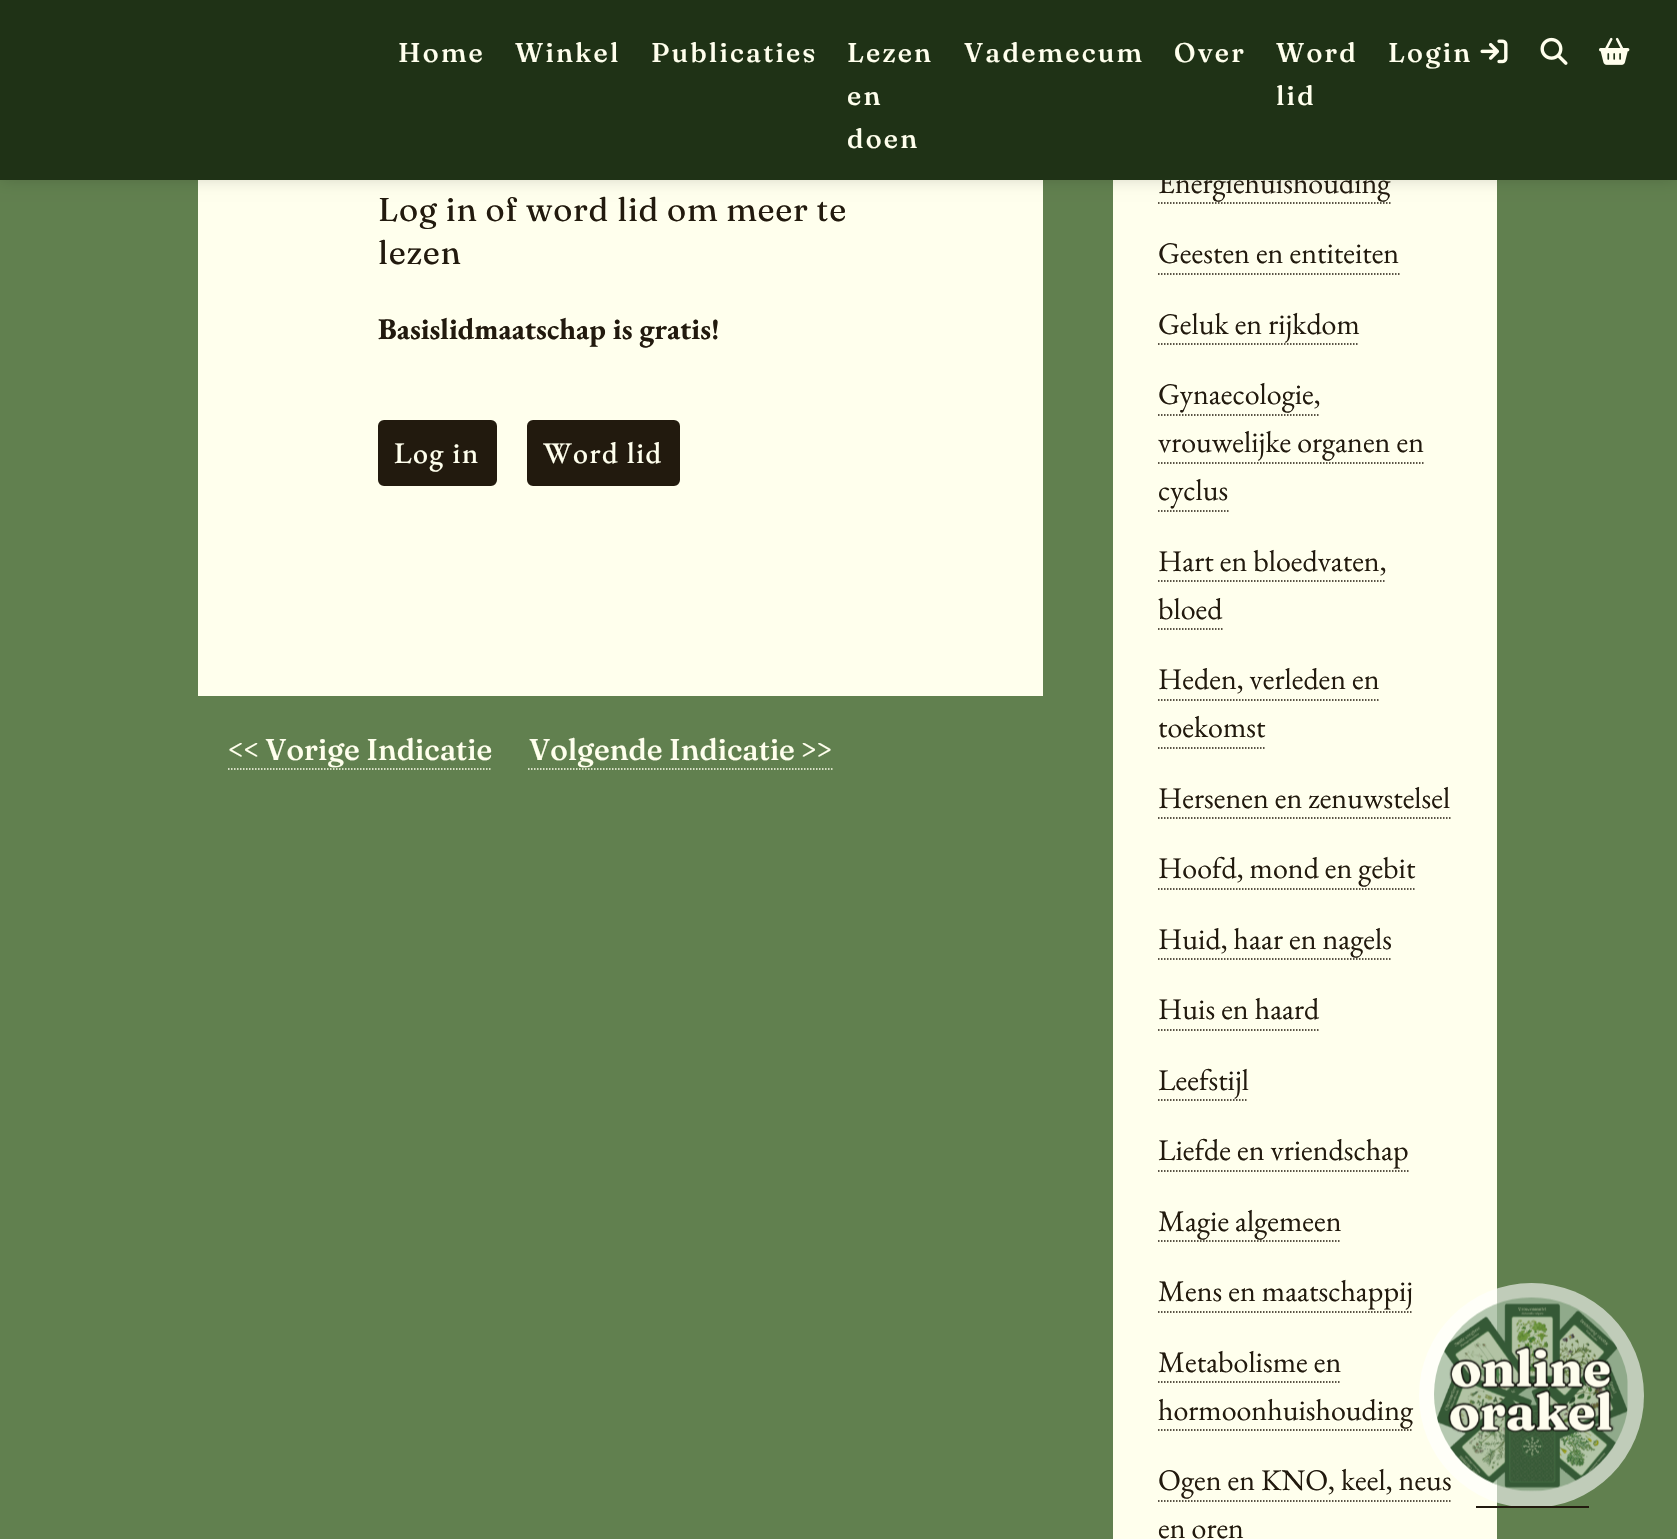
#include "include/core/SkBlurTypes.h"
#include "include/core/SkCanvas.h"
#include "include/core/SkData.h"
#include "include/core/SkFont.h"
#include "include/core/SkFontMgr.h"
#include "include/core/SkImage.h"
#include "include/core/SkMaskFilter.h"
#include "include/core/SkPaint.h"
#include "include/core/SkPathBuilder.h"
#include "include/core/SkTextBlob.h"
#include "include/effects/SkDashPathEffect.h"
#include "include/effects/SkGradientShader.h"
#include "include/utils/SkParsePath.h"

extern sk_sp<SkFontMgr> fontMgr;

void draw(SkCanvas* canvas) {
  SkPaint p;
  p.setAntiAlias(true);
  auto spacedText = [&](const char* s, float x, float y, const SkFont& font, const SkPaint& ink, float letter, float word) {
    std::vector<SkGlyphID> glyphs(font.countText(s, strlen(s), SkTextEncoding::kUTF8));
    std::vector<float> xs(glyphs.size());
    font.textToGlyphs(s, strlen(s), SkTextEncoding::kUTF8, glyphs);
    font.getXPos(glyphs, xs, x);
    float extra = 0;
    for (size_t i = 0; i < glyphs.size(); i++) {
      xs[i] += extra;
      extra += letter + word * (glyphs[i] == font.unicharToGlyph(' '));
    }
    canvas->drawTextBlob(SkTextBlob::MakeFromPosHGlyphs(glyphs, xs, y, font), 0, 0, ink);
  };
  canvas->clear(SkColorSetRGB(97, 128, 79));
  p.setColor(SkColorSetRGB(255, 255, 237));
  canvas->drawRect(SkRect::MakeLTRB(198, 180, 1043, 696), p);
  canvas->drawRect(SkRect::MakeLTRB(1113, 180, 1497, 1539), p);
  p.setStyle(SkPaint::kStroke_Style);
  p.setStrokeWidth(1.5f);
  p.setColor(SkColorSetRGB(34, 26, 14));
  p.setPathEffect(SkDashPathEffect::Make({{1.5f, 1.5f}}, 0));
  canvas->drawPath(SkPathBuilder().moveTo(1158, 203).lineTo(1390.5f, 203).detach(), p);
  p.setPathEffect(nullptr);
  p.setStyle(SkPaint::kFill_Style);
  p.setColor(SkColorSetARGB(38, 0, 0, 0));
  p.setMaskFilter(SkMaskFilter::MakeBlur(kNormal_SkBlurStyle, 7.5f));
  canvas->drawRect(SkRect::MakeLTRB(0, 0, 1677, 180), p);
  p.setMaskFilter(nullptr);
  p.setColor(SkColorSetRGB(34, 26, 14));
  canvas->drawRoundRect(SkRect::MakeLTRB(379, 421, 496, 485), 5, 5, p);
  p.setStyle(SkPaint::kStroke_Style);
  p.setStrokeWidth(2);
  canvas->drawRoundRect(SkRect::MakeLTRB(379, 421, 496, 485), 5, 5, p);
  p.setStyle(SkPaint::kFill_Style);
  canvas->drawRoundRect(SkRect::MakeLTRB(528, 421, 679, 485), 5, 5, p);
  p.setStyle(SkPaint::kStroke_Style);
  canvas->drawRoundRect(SkRect::MakeLTRB(528, 421, 679, 485), 5, 5, p);
  p.setStrokeWidth(1.5f);
  p.setColor(SkColorSetRGB(255, 255, 237));
  p.setPathEffect(SkDashPathEffect::Make({{1.5f, 1.5f}}, 0));
  canvas->drawPath(SkPathBuilder().moveTo(228, 769).lineTo(492, 769).detach(), p);
  p.setPathEffect(nullptr);
  p.setPathEffect(SkDashPathEffect::Make({{1.5f, 1.5f}}, 0));
  canvas->drawPath(SkPathBuilder().moveTo(528, 769).lineTo(832.5f, 769).detach(), p);
  p.setPathEffect(nullptr);
  p.setColor(SkColorSetRGB(34, 26, 14));
  p.setPathEffect(SkDashPathEffect::Make({{1.5f, 1.5f}}, 0));
  canvas->drawPath(SkPathBuilder().moveTo(1158, 274).lineTo(1399.5f, 274).detach(), p);
  p.setPathEffect(nullptr);
  p.setPathEffect(SkDashPathEffect::Make({{1.5f, 1.5f}}, 0));
  canvas->drawPath(SkPathBuilder().moveTo(1158, 344).lineTo(1359, 344).detach(), p);
  p.setPathEffect(nullptr);
  p.setPathEffect(SkDashPathEffect::Make({{1.5f, 1.5f}}, 0));
  canvas->drawPath(SkPathBuilder().moveTo(1158, 415).lineTo(1320, 415).detach(), p);
  p.setPathEffect(nullptr);
  p.setPathEffect(SkDashPathEffect::Make({{1.5f, 1.5f}}, 0));
  canvas->drawPath(SkPathBuilder().moveTo(1158, 463).lineTo(1423.5f, 463).detach(), p);
  p.setPathEffect(nullptr);
  p.setPathEffect(SkDashPathEffect::Make({{1.5f, 1.5f}}, 0));
  canvas->drawPath(SkPathBuilder().moveTo(1158, 511).lineTo(1228.5f, 511).detach(), p);
  p.setPathEffect(nullptr);
  p.setPathEffect(SkDashPathEffect::Make({{1.5f, 1.5f}}, 0));
  canvas->drawPath(SkPathBuilder().moveTo(1158, 581).lineTo(1386, 581).detach(), p);
  p.setPathEffect(nullptr);
  p.setPathEffect(SkDashPathEffect::Make({{1.5f, 1.5f}}, 0));
  canvas->drawPath(SkPathBuilder().moveTo(1158, 629).lineTo(1222.5f, 629).detach(), p);
  p.setPathEffect(nullptr);
  p.setPathEffect(SkDashPathEffect::Make({{1.5f, 1.5f}}, 0));
  canvas->drawPath(SkPathBuilder().moveTo(1158, 700).lineTo(1380, 700).detach(), p);
  p.setPathEffect(nullptr);
  p.setPathEffect(SkDashPathEffect::Make({{1.5f, 1.5f}}, 0));
  canvas->drawPath(SkPathBuilder().moveTo(1158, 748).lineTo(1264.5f, 748).detach(), p);
  p.setPathEffect(nullptr);
  p.setPathEffect(SkDashPathEffect::Make({{1.5f, 1.5f}}, 0));
  canvas->drawPath(SkPathBuilder().moveTo(1158, 818).lineTo(1450.5f, 818).detach(), p);
  p.setPathEffect(nullptr);
  p.setPathEffect(SkDashPathEffect::Make({{1.5f, 1.5f}}, 0));
  canvas->drawPath(SkPathBuilder().moveTo(1158, 889).lineTo(1414.5f, 889).detach(), p);
  p.setPathEffect(nullptr);
  p.setPathEffect(SkDashPathEffect::Make({{1.5f, 1.5f}}, 0));
  canvas->drawPath(SkPathBuilder().moveTo(1158, 959).lineTo(1392, 959).detach(), p);
  p.setPathEffect(nullptr);
  p.setPathEffect(SkDashPathEffect::Make({{1.5f, 1.5f}}, 0));
  canvas->drawPath(SkPathBuilder().moveTo(1158, 1030).lineTo(1318.5f, 1030).detach(), p);
  p.setPathEffect(nullptr);
  p.setPathEffect(SkDashPathEffect::Make({{1.5f, 1.5f}}, 0));
  canvas->drawPath(SkPathBuilder().moveTo(1158, 1100).lineTo(1248, 1100).detach(), p);
  p.setPathEffect(nullptr);
  p.setPathEffect(SkDashPathEffect::Make({{1.5f, 1.5f}}, 0));
  canvas->drawPath(SkPathBuilder().moveTo(1158, 1171).lineTo(1408.5f, 1171).detach(), p);
  p.setPathEffect(nullptr);
  p.setPathEffect(SkDashPathEffect::Make({{1.5f, 1.5f}}, 0));
  canvas->drawPath(SkPathBuilder().moveTo(1158, 1241).lineTo(1341, 1241).detach(), p);
  p.setPathEffect(nullptr);
  p.setPathEffect(SkDashPathEffect::Make({{1.5f, 1.5f}}, 0));
  canvas->drawPath(SkPathBuilder().moveTo(1158, 1312).lineTo(1413, 1312).detach(), p);
  p.setPathEffect(nullptr);
  p.setPathEffect(SkDashPathEffect::Make({{1.5f, 1.5f}}, 0));
  canvas->drawPath(SkPathBuilder().moveTo(1158, 1382).lineTo(1341, 1382).detach(), p);
  p.setPathEffect(nullptr);
  p.setPathEffect(SkDashPathEffect::Make({{1.5f, 1.5f}}, 0));
  canvas->drawPath(SkPathBuilder().moveTo(1158, 1430).lineTo(1413, 1430).detach(), p);
  p.setPathEffect(nullptr);
  p.setPathEffect(SkDashPathEffect::Make({{1.5f, 1.5f}}, 0));
  canvas->drawPath(SkPathBuilder().moveTo(1158, 1501).lineTo(1452, 1501).detach(), p);
  p.setPathEffect(nullptr);
  SkFont font1(fontMgr->matchFamilyStyle("Fraunces", SkFontStyle::Normal()), 33);
  font1.setSubpixel(true);
  p.setStyle(SkPaint::kFill_Style);
  spacedText("Log in of word lid om meer te", 378, 221, font1, p, 0.75f, 0);
  spacedText("lezen", 378, 264, font1, p, 0.75f, 0);
  SkFont font2(fontMgr->matchFamilyStyle("EB Garamond", SkFontStyle::Bold()), 30);
  font2.setSubpixel(true);
  canvas->drawString("Basislidmaatschap is gratis!", 378, 339, font2, p);
  SkFont font3(fontMgr->matchFamilyStyle("EB Garamond", SkFontStyle(500, SkFontStyle::kNormal_Width, SkFontStyle::kUpright_Slant)), 30);
  font3.setSubpixel(true);
  p.setColor(SkColorSetRGB(255, 255, 237));
  spacedText("Log in", 394, 463, font3, p, 1.5f, 0);
  spacedText("Word lid", 543, 463, font3, p, 1.5f, 0);
  SkFont font4(fontMgr->matchFamilyStyle("Fraunces", SkFontStyle(500, SkFontStyle::kNormal_Width, SkFontStyle::kUpright_Slant)), 30);
  font4.setSubpixel(true);
  canvas->drawString("<< Vorige Indicatie", 228, 760, font4, p);
  canvas->drawString("Volgende Indicatie >>", 529, 760, font4, p);
  SkFont font5(fontMgr->matchFamilyStyle("EB Garamond", SkFontStyle::Normal()), 30);
  font5.setSubpixel(true);
  p.setColor(SkColorSetRGB(34, 26, 14));
  canvas->drawString("Energiehuishouding", 1158, 193, font5, p);
  p.setColor(SkColorSetRGB(31, 50, 22));
  canvas->drawRect(SkRect::MakeLTRB(0, 0, 1677, 180), p);
  canvas->drawImageRect(SkImages::DeferredFromEncodedData(SkData::MakeFromFileName("images/3.png")), SkRect::MakeLTRB(1599, 37, 1630, 65), SkSamplingOptions());
  canvas->drawImageRect(SkImages::DeferredFromEncodedData(SkData::MakeFromFileName("images/2.png")), SkRect::MakeLTRB(1540, 37, 1568, 65), SkSamplingOptions());
  canvas->drawImageRect(SkImages::DeferredFromEncodedData(SkData::MakeFromFileName("images/1.png")), SkRect::MakeLTRB(1480, 39, 1508, 64), SkSamplingOptions());
  SkFont font6(fontMgr->matchFamilyStyle("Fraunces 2", SkFontStyle(500, SkFontStyle::kNormal_Width, SkFontStyle::kUpright_Slant)), 27);
  font6.setSubpixel(true);
  p.setColor(SkColorSetRGB(255, 255, 237));
  spacedText("Login", 1388, 62, font6, p, 2.25f, 0);
  spacedText("lid", 1276, 105, font6, p, 2.25f, 0);
  spacedText("Word", 1276, 62, font6, p, 2.25f, 0);
  spacedText("Over", 1174, 62, font6, p, 2.25f, 0);
  spacedText("Vademecum", 964, 62, font6, p, 2.25f, 0);
  spacedText("doen", 847, 148, font6, p, 2.25f, 0);
  spacedText("en", 847, 105, font6, p, 2.25f, 0);
  spacedText("Lezen", 847, 62, font6, p, 2.25f, 0);
  spacedText("Publicaties", 651, 62, font6, p, 2.25f, 0);
  spacedText("Winkel", 515, 62, font6, p, 2.25f, 0);
  spacedText("Home", 398, 62, font6, p, 2.25f, 0);
  p.setColor(SkColorSetRGB(34, 26, 14));
  canvas->drawString("Geesten en entiteiten", 1158, 263, font5, p);
  canvas->drawString("Geluk en rijkdom", 1158, 334, font5, p);
  canvas->drawString("Gynaecologie,", 1158, 404, font5, p);
  canvas->drawString("vrouwelijke organen en", 1158, 452, font5, p);
  canvas->drawString("cyclus", 1158, 500, font5, p);
  canvas->drawString("Hart en bloedvaten,", 1158, 571, font5, p);
  canvas->drawString("bloed", 1158, 619, font5, p);
  canvas->drawString("Heden, verleden en", 1158, 689, font5, p);
  canvas->drawString("toekomst", 1158, 737, font5, p);
  canvas->drawString("Hersenen en zenuwstelsel", 1158, 808, font5, p);
  canvas->drawString("Hoofd, mond en gebit", 1158, 878, font5, p);
  canvas->drawString("Huid, haar en nagels", 1158, 949, font5, p);
  canvas->drawString("Huis en haard", 1158, 1019, font5, p);
  canvas->drawString("Leefstijl", 1158, 1090, font5, p);
  canvas->drawString("Liefde en vriendschap", 1158, 1160, font5, p);
  canvas->drawString("Magie algemeen", 1158, 1231, font5, p);
  canvas->drawString("Mens en maatschappij", 1158, 1301, font5, p);
  canvas->drawString("Metabolisme en", 1158, 1372, font5, p);
  canvas->drawString("hormoonhuishouding", 1158, 1420, font5, p);
  canvas->drawString("Ogen en KNO, keel, neus", 1158, 1490, font5, p);
  canvas->drawString("en oren", 1158, 1538, font5, p);
  p.setColor(SkColorSetARGB(153, 255, 255, 255));
  canvas->drawCircle(1531.5f, 1395.5f, 112.5f, p);
  p.setColor(SkColorSetRGB(34, 26, 14));
  canvas->drawRect(SkRect::MakeLTRB(1476, 1506, 1589, 1508), p);
  canvas->drawImageRect(SkImages::DeferredFromEncodedData(SkData::MakeFromFileName("images/4.png")), SkRect::MakeLTRB(1434, 1297, 1628, 1492), SkSamplingOptions());
}
